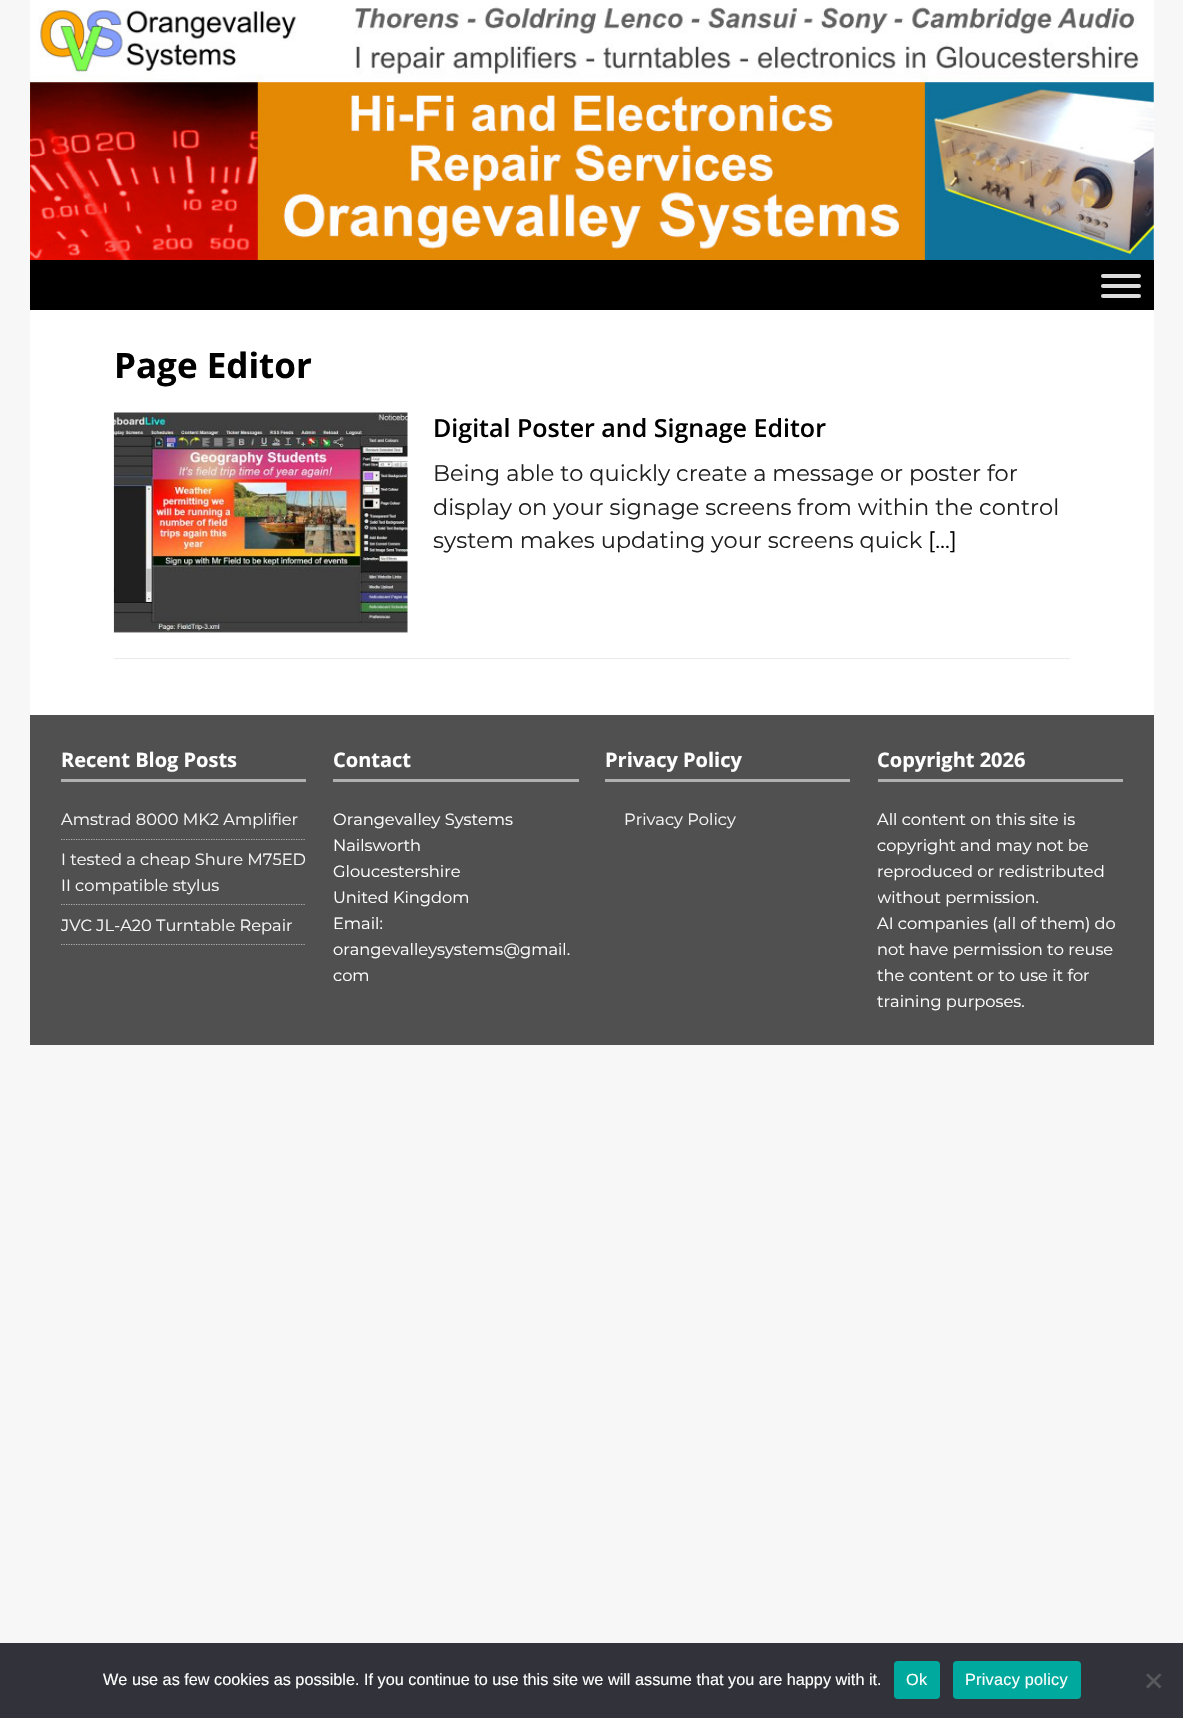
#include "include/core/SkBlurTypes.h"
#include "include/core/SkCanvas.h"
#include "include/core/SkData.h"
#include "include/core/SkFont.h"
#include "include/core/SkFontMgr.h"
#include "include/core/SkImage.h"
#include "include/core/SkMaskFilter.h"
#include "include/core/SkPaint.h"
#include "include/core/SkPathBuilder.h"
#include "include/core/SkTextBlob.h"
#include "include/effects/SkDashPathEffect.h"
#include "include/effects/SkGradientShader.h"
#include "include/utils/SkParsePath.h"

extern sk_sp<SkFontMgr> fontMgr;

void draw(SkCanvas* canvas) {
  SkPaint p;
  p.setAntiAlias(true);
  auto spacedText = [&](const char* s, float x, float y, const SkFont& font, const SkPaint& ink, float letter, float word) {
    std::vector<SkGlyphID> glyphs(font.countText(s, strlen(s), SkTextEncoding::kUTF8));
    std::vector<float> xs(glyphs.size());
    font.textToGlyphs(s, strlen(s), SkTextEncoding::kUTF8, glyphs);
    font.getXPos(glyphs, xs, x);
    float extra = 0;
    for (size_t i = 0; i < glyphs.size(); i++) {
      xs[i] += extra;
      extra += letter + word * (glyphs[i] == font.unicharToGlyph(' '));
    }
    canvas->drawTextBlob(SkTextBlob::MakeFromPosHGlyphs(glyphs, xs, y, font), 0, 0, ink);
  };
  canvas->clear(SkColorSetRGB(247, 247, 247));
  p.setColor(SK_ColorWHITE);
  canvas->drawRect(SkRect::MakeLTRB(30, 0, 1154, 260), p);
  canvas->drawImageRect(SkImages::DeferredFromEncodedData(SkData::MakeFromFileName("images/1.png")), SkRect::MakeLTRB(30, 6, 1154, 260), SkSamplingOptions());
  p.setColor(SK_ColorBLACK);
  canvas->drawRect(SkRect::MakeLTRB(30, 260, 1154, 310), p);
  p.setColor(SkColorSetRGB(221, 221, 221));
  canvas->drawRoundRect(SkRect::MakeLTRB(1101, 274, 1141, 278), 2, 2, p);
  canvas->drawRoundRect(SkRect::MakeLTRB(1101, 284, 1141, 288), 2, 2, p);
  canvas->drawRoundRect(SkRect::MakeLTRB(1101, 294, 1141, 298), 2, 2, p);
  p.setColor(SK_ColorWHITE);
  canvas->drawRect(SkRect::MakeLTRB(30, 310, 1154, 715), p);
  p.setColor(SkColorSetRGB(235, 235, 235));
  canvas->drawRect(SkRect::MakeLTRB(114, 658, 1070, 659), p);
  canvas->drawImageRect(SkImages::DeferredFromEncodedData(SkData::MakeFromFileName("images/2.png")), SkRect::MakeLTRB(113, 412, 408, 633), SkSamplingOptions());
  p.setColor(SkColorSetRGB(80, 80, 80));
  canvas->drawRect(SkRect::MakeLTRB(30, 715, 1154, 1045), p);
  p.setColor(SkColorSetRGB(176, 176, 176));
  canvas->drawRect(SkRect::MakeLTRB(61, 779, 306, 782), p);
  p.setStyle(SkPaint::kStroke_Style);
  p.setStrokeWidth(1.2f);
  p.setPathEffect(SkDashPathEffect::Make({{1.25f, 1.25f}}, 0));
  canvas->drawPath(SkPathBuilder().moveTo(61, 839.5f).lineTo(306, 839.5f).detach(), p);
  p.setPathEffect(nullptr);
  p.setPathEffect(SkDashPathEffect::Make({{1.25f, 1.25f}}, 0));
  canvas->drawPath(SkPathBuilder().moveTo(61, 904.5f).lineTo(306, 904.5f).detach(), p);
  p.setPathEffect(nullptr);
  canvas->save();
  canvas->clipRect(SkRect::MakeLTRB(61, 746, 306, 945));
  p.setPathEffect(SkDashPathEffect::Make({{1.25f, 1.25f}}, 0));
  canvas->drawPath(SkPathBuilder().moveTo(61, 944.5f).lineTo(306, 944.5f).detach(), p);
  p.setPathEffect(nullptr);
  canvas->restore();
  p.setStyle(SkPaint::kFill_Style);
  canvas->drawRect(SkRect::MakeLTRB(333, 779, 579, 782), p);
  canvas->drawRect(SkRect::MakeLTRB(605, 779, 850, 782), p);
  canvas->drawRect(SkRect::MakeLTRB(878, 779, 1123, 782), p);
  p.setColor(SkColorSetRGB(50, 50, 58));
  canvas->drawRect(SkRect::MakeLTRB(0, 1643, 1183, 1718), p);
  p.setColor(SkColorSetRGB(0, 169, 157));
  canvas->drawRoundRect(SkRect::MakeLTRB(894, 1661, 940, 1699), 4, 4, p);
  canvas->drawRoundRect(SkRect::MakeLTRB(953, 1661, 1081, 1699), 4, 4, p);
  p.setColor(SkColorSetRGB(89, 89, 93));
  canvas->drawPath(SkPathBuilder().moveTo(1159.5f, 1673.5f).lineTo(1161.5f, 1675).lineTo(1148, 1688.5f).lineTo(1146, 1686.5f).close().detach(), p);
  canvas->drawPath(SkPathBuilder().moveTo(1146, 1675).lineTo(1148, 1673.5f).lineTo(1161.5f, 1686.5f).lineTo(1159.5f, 1688.5f).close().detach(), p);
  SkFont font1(fontMgr->matchFamilyStyle("Open Sans", SkFontStyle::Bold()), 35);
  font1.setSubpixel(true);
  p.setColor(SK_ColorBLACK);
  canvas->drawString("Page Editor", 114, 378, font1, p);
  SkFont font2(fontMgr->matchFamilyStyle("Open Sans", SkFontStyle(600, SkFontStyle::kNormal_Width, SkFontStyle::kUpright_Slant)), 25);
  font2.setSubpixel(true);
  canvas->drawString("Digital Poster and Signage Editor", 433, 437, font2, p);
  SkFont font3(fontMgr->matchFamilyStyle("Montserrat", SkFontStyle::Normal()), 22.5f);
  font3.setSubpixel(true);
  p.setColor(SkColorSetRGB(32, 32, 32));
  canvas->drawString("Being able to quickly create a message or poster for", 433, 481, font3, p);
  canvas->drawString("display on your signage screens from within the control", 433, 515, font3, p);
  canvas->drawString("system makes updating your screens quick", 433, 548, font3, p);
  p.setColor(SK_ColorBLACK);
  canvas->drawString("[…]", 928, 548, font3, p);
  SkFont font4(fontMgr->matchFamilyStyle("Open Sans", SkFontStyle::Bold()), 20);
  font4.setSubpixel(true);
  p.setColor(SK_ColorWHITE);
  canvas->drawString("Recent Blog Posts", 61, 767, font4, p);
  SkFont font5(fontMgr->matchFamilyStyle("Montserrat", SkFontStyle::Normal()), 16.25f);
  font5.setSubpixel(true);
  p.setColor(SkColorSetRGB(247, 247, 247));
  canvas->drawString("Amstrad 8000 MK2 Amplifier", 61, 825, font5, p);
  canvas->drawString("I tested a cheap Shure M75ED", 61, 865, font5, p);
  canvas->drawString("II compatible stylus", 61, 891, font5, p);
  canvas->drawString("JVC JL-A20 Turntable Repair", 61, 931, font5, p);
  p.setColor(SK_ColorWHITE);
  canvas->drawString("Contact", 333, 767, font4, p);
  canvas->drawString("Orangevalley Systems", 333, 825, font5, p);
  canvas->drawString("Nailsworth", 333, 851, font5, p);
  canvas->drawString("Gloucestershire", 333, 877, font5, p);
  canvas->drawString("United Kingdom", 333, 903, font5, p);
  canvas->drawString("Email:", 333, 929, font5, p);
  canvas->drawString("orangevalleysystems@gmail.", 333, 955, font5, p);
  canvas->drawString("com", 333, 981, font5, p);
  canvas->drawString("Privacy Policy", 605, 767, font4, p);
  p.setColor(SkColorSetRGB(247, 247, 247));
  canvas->drawString("Privacy Policy", 624, 825, font5, p);
  p.setColor(SK_ColorWHITE);
  canvas->drawString("Copyright 2026", 877, 767, font4, p);
  canvas->drawString("All content on this site is", 877, 825, font5, p);
  canvas->drawString("copyright and may not be", 877, 851, font5, p);
  canvas->drawString("reproduced or redistributed", 877, 877, font5, p);
  canvas->save();
  canvas->clipRect(SkRect::MakeLTRB(878, 746, 1123, 1014));
  canvas->drawString("without permission.", 877, 903, font5, p);
  canvas->restore();
  canvas->drawString("AI companies (all of them) do", 877, 929, font5, p);
  canvas->drawString("not have permission to reuse", 877, 955, font5, p);
  canvas->drawString("the content or to use it for", 877, 981, font5, p);
  canvas->drawString("training purposes.", 877, 1007, font5, p);
  SkFont font6(fontMgr->matchFamilyStyle("Liberation Sans", SkFontStyle::Normal()), 16.25f);
  font6.setSubpixel(true);
  canvas->drawString("We use as few cookies as possible. If you continue to use this site we will assume that you are happy with it.", 103, 1685, font6, p);
  spacedText("Ok", 906, 1685, font6, p, 0.25f, 0);
  spacedText("Privacy policy", 965, 1685, font6, p, 0.25f, 0);
}
